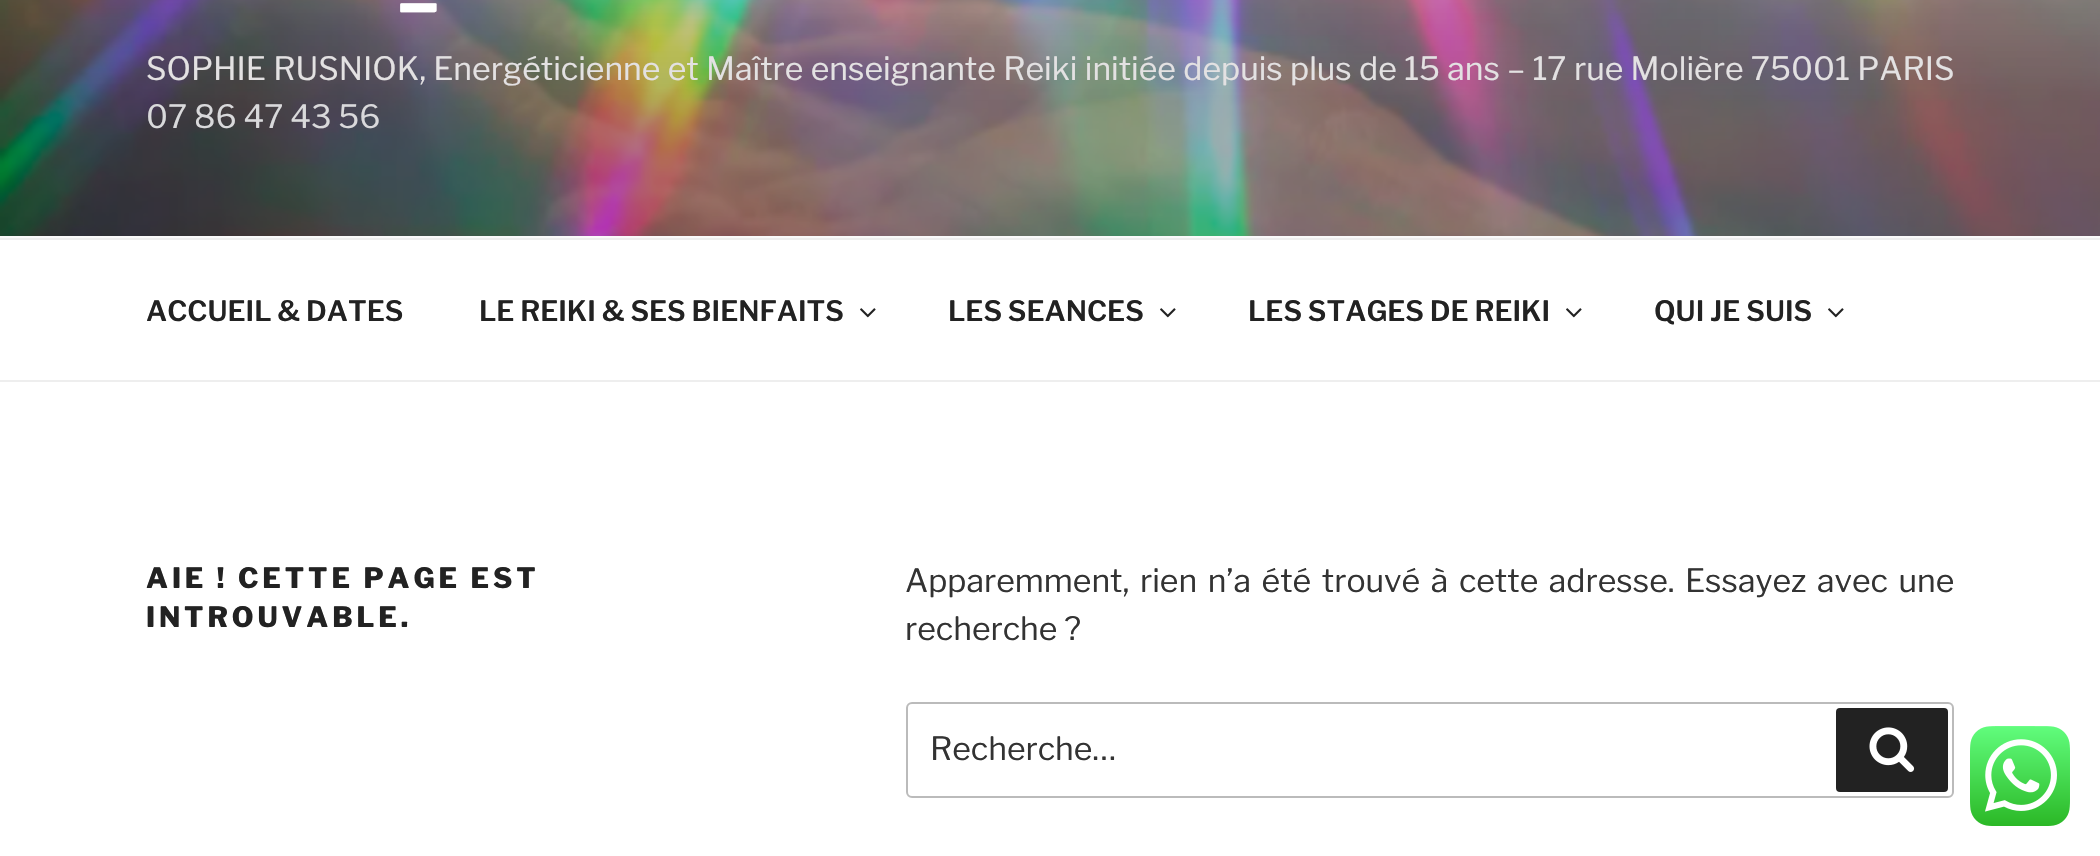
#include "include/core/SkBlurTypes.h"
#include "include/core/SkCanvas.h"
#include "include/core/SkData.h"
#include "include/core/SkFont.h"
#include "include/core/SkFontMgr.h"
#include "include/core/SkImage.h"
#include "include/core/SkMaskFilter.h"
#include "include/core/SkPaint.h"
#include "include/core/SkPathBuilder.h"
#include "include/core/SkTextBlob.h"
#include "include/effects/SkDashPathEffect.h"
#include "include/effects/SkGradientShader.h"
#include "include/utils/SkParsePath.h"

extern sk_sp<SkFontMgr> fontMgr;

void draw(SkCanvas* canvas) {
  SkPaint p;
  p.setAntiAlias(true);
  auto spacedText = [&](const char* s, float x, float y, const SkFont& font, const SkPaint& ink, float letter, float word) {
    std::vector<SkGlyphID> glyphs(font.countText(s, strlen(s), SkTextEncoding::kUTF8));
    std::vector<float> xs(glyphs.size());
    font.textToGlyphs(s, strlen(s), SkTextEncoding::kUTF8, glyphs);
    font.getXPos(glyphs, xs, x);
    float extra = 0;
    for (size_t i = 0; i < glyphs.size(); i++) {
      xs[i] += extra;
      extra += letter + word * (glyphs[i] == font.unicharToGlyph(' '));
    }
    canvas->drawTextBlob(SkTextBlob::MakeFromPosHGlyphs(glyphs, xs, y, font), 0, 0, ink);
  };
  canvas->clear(SK_ColorWHITE);
  p.setColor(SkColorSetRGB(250, 250, 250));
  canvas->drawRect(SkRect::MakeLTRB(0, 236, 2100, 238), p);
  canvas->drawImageRect(SkImages::DeferredFromEncodedData(SkData::MakeFromFileName("images/1.png")), SkRect::MakeLTRB(0, 0, 2100, 236), SkSamplingOptions());
  p.setColor(SkColorSetRGB(238, 238, 238));
  canvas->drawRect(SkRect::MakeLTRB(0, 238, 2100, 240), p);
  canvas->drawRect(SkRect::MakeLTRB(0, 380, 2100, 382), p);
  canvas->drawImageRect(SkImages::DeferredFromEncodedData(SkData::MakeFromFileName("images/2.png")), SkRect::MakeLTRB(860, 308, 876, 318), SkSamplingOptions());
  canvas->drawImageRect(SkImages::DeferredFromEncodedData(SkData::MakeFromFileName("images/2.png")), SkRect::MakeLTRB(1160, 308, 1176, 318), SkSamplingOptions());
  canvas->drawImageRect(SkImages::DeferredFromEncodedData(SkData::MakeFromFileName("images/2.png")), SkRect::MakeLTRB(1566, 308, 1582, 318), SkSamplingOptions());
  canvas->drawImageRect(SkImages::DeferredFromEncodedData(SkData::MakeFromFileName("images/2.png")), SkRect::MakeLTRB(1828, 308, 1844, 318), SkSamplingOptions());
  p.setStyle(SkPaint::kStroke_Style);
  p.setStrokeWidth(2);
  p.setColor(SkColorSetRGB(187, 187, 187));
  canvas->drawRoundRect(SkRect::MakeLTRB(907, 703, 1953, 797), 5, 5, p);
  p.setStyle(SkPaint::kFill_Style);
  p.setColor(SkColorSetRGB(34, 34, 34));
  canvas->drawRoundRect(SkRect::MakeLTRB(1836, 708, 1948, 792), 4, 4, p);
  canvas->drawImageRect(SkImages::DeferredFromEncodedData(SkData::MakeFromFileName("images/3.png")), SkRect::MakeLTRB(1869, 727, 1915, 772), SkSamplingOptions());
  canvas->drawImageRect(SkImages::DeferredFromEncodedData(SkData::MakeFromFileName("images/4.png")), SkRect::MakeLTRB(1970, 726, 2070, 826), SkSamplingOptions());
  SkFont font1(fontMgr->matchFamilyStyle("Libre Franklin", SkFontStyle(100, SkFontStyle::kNormal_Width, SkFontStyle::kUpright_Slant)), 72);
  font1.setSubpixel(true);
  p.setColor(SK_ColorWHITE);
  spacedText("–", 397, 26, font1, p, 6, 0);
  SkFont font2(fontMgr->matchFamilyStyle("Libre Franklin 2", SkFontStyle(100, SkFontStyle::kNormal_Width, SkFontStyle::kUpright_Slant)), 32);
  font2.setSubpixel(true);
  p.setColor(SkColorSetRGB(227, 225, 226));
  spacedText("SOPHIE RUSNIOK, Energéticienne et Maître enseignante Reiki initiée depuis plus de 15 ans – 17 rue Molière 75001 PARIS", 146, 80, font2, p, 0, 0.5f);
  p.setColor(SkColorSetRGB(217, 217, 219));
  canvas->drawString("07 86 47 43 56", 146, 128, font2, p);
  SkFont font3(fontMgr->matchFamilyStyle("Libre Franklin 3", SkFontStyle(100, SkFontStyle::kNormal_Width, SkFontStyle::kUpright_Slant)), 28);
  font3.setSubpixel(true);
  p.setColor(SkColorSetRGB(34, 34, 34));
  canvas->drawString("ACCUEIL & DATES", 146, 321, font3, p);
  canvas->drawString("LE REIKI & SES BIENFAITS", 479, 321, font3, p);
  canvas->drawString("LES SEANCES", 948, 321, font3, p);
  canvas->drawString("LES STAGES DE REIKI", 1248, 321, font3, p);
  canvas->drawString("QUI JE SUIS", 1654, 321, font3, p);
  SkFont font4(fontMgr->matchFamilyStyle("Libre Franklin", SkFontStyle(100, SkFontStyle::kNormal_Width, SkFontStyle::kUpright_Slant)), 28);
  font4.setSubpixel(true);
  spacedText("AIE ! CETTE PAGE EST", 146, 588, font4, p, 3.9f, 0);
  spacedText("INTROUVABLE.", 146, 627, font4, p, 3.9f, 0);
  p.setColor(SkColorSetRGB(51, 51, 51));
  spacedText("Apparemment, rien n’a été trouvé à cette adresse. Essayez avec une", 905, 592, font2, p, 0, 3.75f);
  canvas->drawString("recherche ?", 905, 640, font2, p);
  canvas->drawString("Recherche…", 930, 760, font2, p);
}
